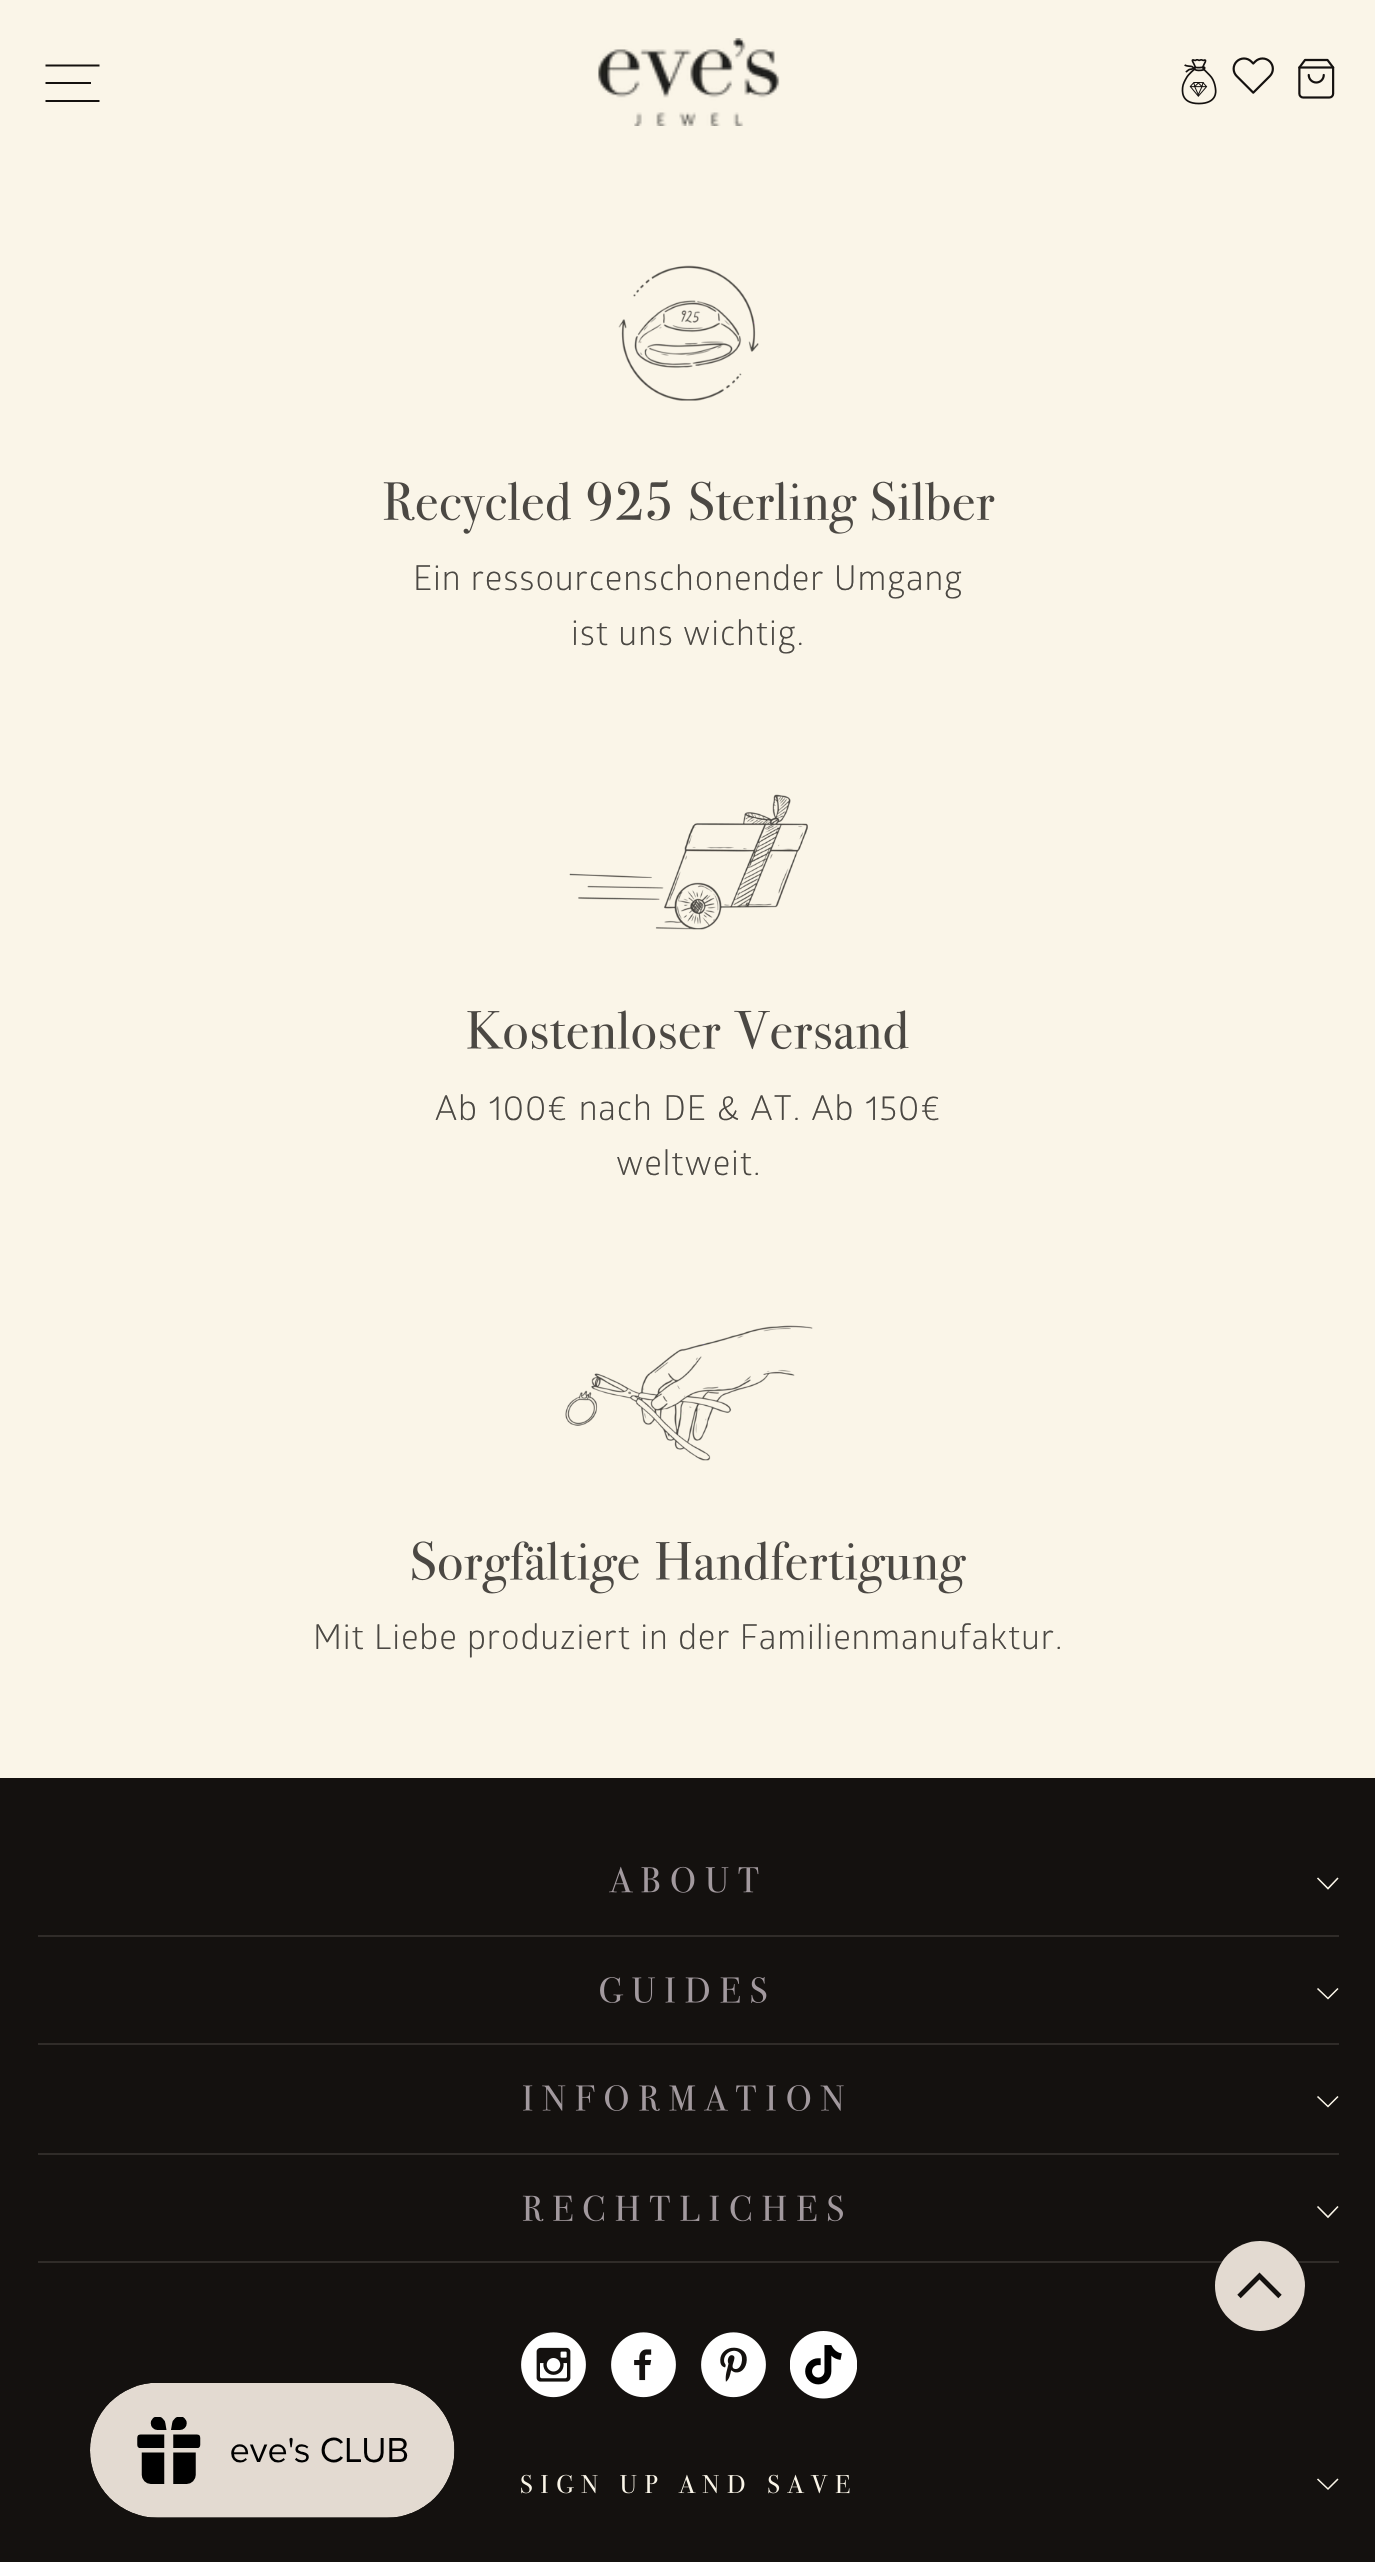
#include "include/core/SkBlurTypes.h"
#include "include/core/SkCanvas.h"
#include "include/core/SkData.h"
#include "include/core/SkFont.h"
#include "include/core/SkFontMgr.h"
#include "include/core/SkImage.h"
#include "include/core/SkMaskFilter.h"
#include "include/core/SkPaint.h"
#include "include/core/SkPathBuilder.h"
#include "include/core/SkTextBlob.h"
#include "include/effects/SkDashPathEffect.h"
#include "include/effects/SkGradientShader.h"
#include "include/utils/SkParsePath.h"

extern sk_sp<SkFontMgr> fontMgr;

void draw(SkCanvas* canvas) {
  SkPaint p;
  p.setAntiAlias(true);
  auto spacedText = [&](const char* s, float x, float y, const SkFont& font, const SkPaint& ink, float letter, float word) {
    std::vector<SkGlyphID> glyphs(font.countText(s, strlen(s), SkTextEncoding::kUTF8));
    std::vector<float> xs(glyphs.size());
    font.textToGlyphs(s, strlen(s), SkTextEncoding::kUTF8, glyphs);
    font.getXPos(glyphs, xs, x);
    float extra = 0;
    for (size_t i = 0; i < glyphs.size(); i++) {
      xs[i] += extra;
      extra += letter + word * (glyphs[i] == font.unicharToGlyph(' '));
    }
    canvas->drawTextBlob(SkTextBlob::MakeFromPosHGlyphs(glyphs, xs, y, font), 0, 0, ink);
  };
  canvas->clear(SkColorSetRGB(250, 245, 232));
  p.setStyle(SkPaint::kStroke_Style);
  p.setStrokeWidth(2.1f);
  p.setColor(SkColorSetRGB(20, 17, 15));
  canvas->drawPath(SkPathBuilder().moveTo(45.5f, 65.5f).lineTo(99.5f, 65.5f).moveTo(45.5f, 83).lineTo(91, 83).moveTo(45.5f, 101).lineTo(99.5f, 101).detach(), p);
  canvas->drawImageRect(SkImages::DeferredFromEncodedData(SkData::MakeFromFileName("images/1.png")), SkRect::MakeLTRB(598, 38, 780, 126), SkSamplingOptions());
  canvas->drawImageRect(SkImages::DeferredFromEncodedData(SkData::MakeFromFileName("images/2.png")), SkRect::MakeLTRB(1181, 59, 1217, 105), SkSamplingOptions());
  canvas->drawImageRect(SkImages::DeferredFromEncodedData(SkData::MakeFromFileName("images/3.png")), SkRect::MakeLTRB(1232, 57, 1274, 94), SkSamplingOptions());
  canvas->drawImageRect(SkImages::DeferredFromEncodedData(SkData::MakeFromFileName("images/4.png")), SkRect::MakeLTRB(1298, 58, 1335, 99), SkSamplingOptions());
  canvas->drawImageRect(SkImages::DeferredFromEncodedData(SkData::MakeFromFileName("images/5.png")), SkRect::MakeLTRB(618, 265, 759, 401), SkSamplingOptions());
  canvas->drawImageRect(SkImages::DeferredFromEncodedData(SkData::MakeFromFileName("images/6.png")), SkRect::MakeLTRB(383, 480, 995, 534), SkSamplingOptions());
  canvas->drawImageRect(SkImages::DeferredFromEncodedData(SkData::MakeFromFileName("images/7.png")), SkRect::MakeLTRB(569, 794, 808, 930), SkSamplingOptions());
  canvas->drawImageRect(SkImages::DeferredFromEncodedData(SkData::MakeFromFileName("images/8.png")), SkRect::MakeLTRB(467, 1010, 909, 1050), SkSamplingOptions());
  canvas->drawImageRect(SkImages::DeferredFromEncodedData(SkData::MakeFromFileName("images/9.png")), SkRect::MakeLTRB(565, 1325, 813, 1461), SkSamplingOptions());
  canvas->drawImageRect(SkImages::DeferredFromEncodedData(SkData::MakeFromFileName("images/10.png")), SkRect::MakeLTRB(412, 1541, 966, 1594), SkSamplingOptions());
  p.setStyle(SkPaint::kFill_Style);
  canvas->drawRect(SkRect::MakeLTRB(0, 1778, 1375, 2562), p);
  canvas->drawImageRect(SkImages::DeferredFromEncodedData(SkData::MakeFromFileName("images/11.png")), SkRect::MakeLTRB(609, 1866, 759, 1893), SkSamplingOptions());
  p.setStyle(SkPaint::kStroke_Style);
  p.setStrokeWidth(1.6f);
  p.setColor(SkColorSetRGB(250, 245, 232));
  canvas->drawPath(SkPathBuilder().moveTo(1317.5f, 1878).lineTo(1328, 1888.5f).lineTo(1338, 1878).detach(), p);
  p.setStyle(SkPaint::kFill_Style);
  p.setColor(SkColorSetRGB(48, 44, 41));
  canvas->drawRect(SkRect::MakeLTRB(38, 1935, 1339, 1937), p);
  canvas->drawImageRect(SkImages::DeferredFromEncodedData(SkData::MakeFromFileName("images/12.png")), SkRect::MakeLTRB(600, 1977, 767, 2003), SkSamplingOptions());
  p.setStyle(SkPaint::kStroke_Style);
  p.setColor(SkColorSetRGB(250, 245, 232));
  canvas->drawPath(SkPathBuilder().moveTo(1317.5f, 1988.5f).lineTo(1328, 1998.5f).lineTo(1338, 1988.5f).detach(), p);
  p.setStyle(SkPaint::kFill_Style);
  p.setColor(SkColorSetRGB(48, 44, 41));
  canvas->drawRect(SkRect::MakeLTRB(38, 2043, 1339, 2045), p);
  canvas->drawImageRect(SkImages::DeferredFromEncodedData(SkData::MakeFromFileName("images/13.png")), SkRect::MakeLTRB(523, 2085, 844, 2111), SkSamplingOptions());
  p.setStyle(SkPaint::kStroke_Style);
  p.setColor(SkColorSetRGB(250, 245, 232));
  canvas->drawPath(SkPathBuilder().moveTo(1317.5f, 2096.5f).lineTo(1328, 2106.5f).lineTo(1338, 2096.5f).detach(), p);
  p.setStyle(SkPaint::kFill_Style);
  p.setColor(SkColorSetRGB(48, 44, 41));
  canvas->drawRect(SkRect::MakeLTRB(38, 2153, 1339, 2155), p);
  canvas->drawImageRect(SkImages::DeferredFromEncodedData(SkData::MakeFromFileName("images/14.png")), SkRect::MakeLTRB(522, 2195, 843, 2222), SkSamplingOptions());
  p.setStyle(SkPaint::kStroke_Style);
  p.setColor(SkColorSetRGB(250, 245, 232));
  canvas->drawPath(SkPathBuilder().moveTo(1317.5f, 2206.5f).lineTo(1328, 2217).lineTo(1338, 2206.5f).detach(), p);
  p.setStyle(SkPaint::kFill_Style);
  p.setColor(SkColorSetRGB(48, 44, 41));
  canvas->drawRect(SkRect::MakeLTRB(38, 2261, 1339, 2263), p);
  canvas->drawImageRect(SkImages::DeferredFromEncodedData(SkData::MakeFromFileName("images/15.png")), SkRect::MakeLTRB(521, 2332, 586, 2398), SkSamplingOptions());
  canvas->drawImageRect(SkImages::DeferredFromEncodedData(SkData::MakeFromFileName("images/16.png")), SkRect::MakeLTRB(611, 2332, 676, 2398), SkSamplingOptions());
  canvas->drawImageRect(SkImages::DeferredFromEncodedData(SkData::MakeFromFileName("images/17.png")), SkRect::MakeLTRB(701, 2332, 766, 2398), SkSamplingOptions());
  canvas->drawImageRect(SkImages::DeferredFromEncodedData(SkData::MakeFromFileName("images/18.png")), SkRect::MakeLTRB(790, 2331, 857, 2399), SkSamplingOptions());
  canvas->drawImageRect(SkImages::DeferredFromEncodedData(SkData::MakeFromFileName("images/19.png")), SkRect::MakeLTRB(521, 2474, 850, 2494), SkSamplingOptions());
  p.setStyle(SkPaint::kStroke_Style);
  p.setColor(SkColorSetRGB(250, 245, 232));
  canvas->drawPath(SkPathBuilder().moveTo(1317.5f, 2479).lineTo(1328, 2489).lineTo(1338, 2479).detach(), p);
  p.setStyle(SkPaint::kFill_Style);
  p.setColor(SkColorSetRGB(227, 218, 209));
  canvas->drawCircle(1260, 2286, 45, p);
  p.setStyle(SkPaint::kStroke_Style);
  p.setStrokeWidth(4.8f);
  p.setColor(SkColorSetRGB(20, 17, 15));
  canvas->drawPath(SkPathBuilder().moveTo(1280, 2296.5f).lineTo(1259.5f, 2276).lineTo(1239, 2296.5f).detach(), p);
  canvas->drawImageRect(SkImages::DeferredFromEncodedData(SkData::MakeFromFileName("images/20.png")), SkRect::MakeLTRB(90, 2383, 455, 2518), SkSamplingOptions());
  SkFont font1(fontMgr->matchFamilyStyle("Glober", SkFontStyle::Normal()), 34.4f);
  font1.setSubpixel(true);
  p.setStyle(SkPaint::kFill_Style);
  p.setColor(SkColorSetRGB(75, 72, 67));
  spacedText("Ein ressourcenschonender Umgang", 413, 590, font1, p, 0.85f, 0);
  spacedText("ist uns wichtig.", 571, 645, font1, p, 0.85f, 0);
  spacedText("Ab 100€ nach DE & AT. Ab 150€", 435, 1120, font1, p, 0.85f, 1.25f);
  spacedText("weltweit.", 616, 1175, font1, p, 0.85f, 0);
  spacedText("Mit Liebe produziert in der Familienmanufaktur.", 313, 1649, font1, p, 0.85f, 0);
}
